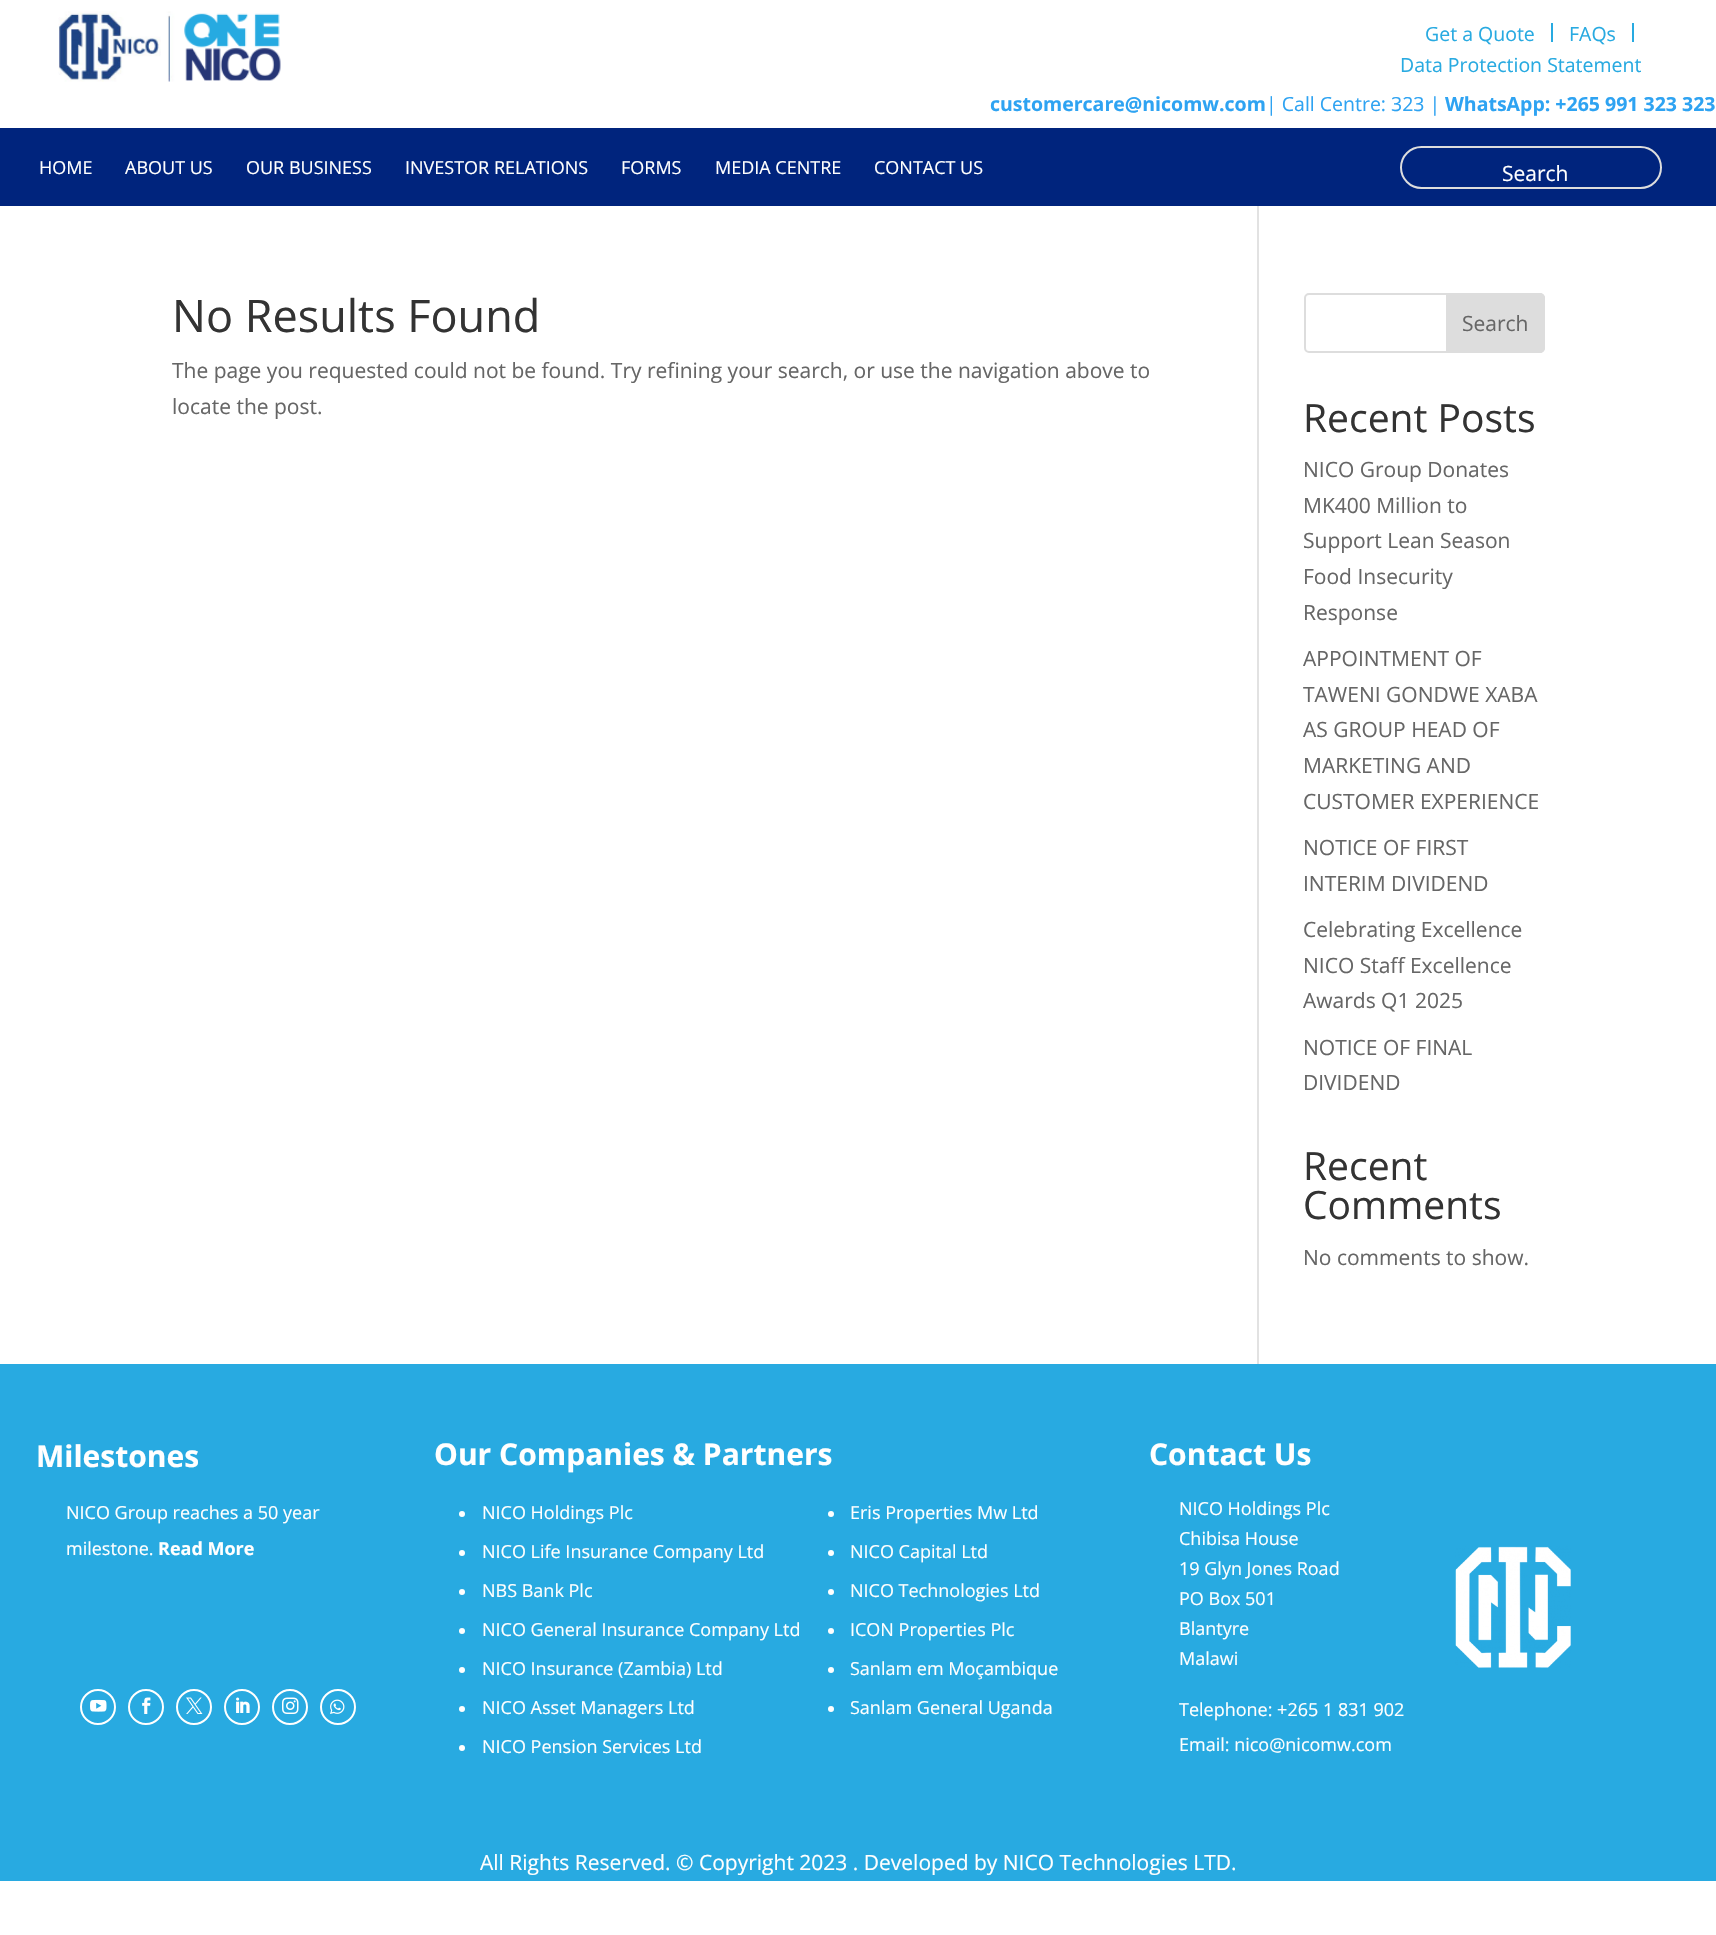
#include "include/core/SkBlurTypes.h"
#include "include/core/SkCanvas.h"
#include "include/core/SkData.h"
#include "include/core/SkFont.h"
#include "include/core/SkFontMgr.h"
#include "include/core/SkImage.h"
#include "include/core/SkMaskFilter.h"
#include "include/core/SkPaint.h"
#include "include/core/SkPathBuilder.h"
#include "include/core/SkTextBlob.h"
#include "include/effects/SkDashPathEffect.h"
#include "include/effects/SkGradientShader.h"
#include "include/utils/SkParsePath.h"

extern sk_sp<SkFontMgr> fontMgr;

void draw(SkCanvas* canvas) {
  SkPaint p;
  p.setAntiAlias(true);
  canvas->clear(SK_ColorWHITE);
  canvas->drawImageRect(SkImages::DeferredFromEncodedData(SkData::MakeFromFileName("images/1.png")), SkRect::MakeLTRB(58, 11, 281, 82), SkSamplingOptions());
  p.setColor(SkColorSetRGB(40, 170, 225));
  canvas->drawRect(SkRect::MakeLTRB(1551, 23, 1553, 42), p);
  canvas->drawRect(SkRect::MakeLTRB(1632, 23, 1634, 42), p);
  p.setColor(SkColorSetRGB(0, 36, 125));
  canvas->drawRect(SkRect::MakeLTRB(0, 128, 1716, 206), p);
  p.setStyle(SkPaint::kStroke_Style);
  p.setStrokeWidth(2);
  p.setColor(SkColorSetRGB(221, 221, 221));
  canvas->drawRoundRect(SkRect::MakeLTRB(1401, 147, 1661, 188), 20.5f, 20.5f, p);
  p.setStyle(SkPaint::kFill_Style);
  p.setColor(SkColorSetRGB(226, 226, 226));
  canvas->drawRect(SkRect::MakeLTRB(1257, 206, 1259, 1364), p);
  p.setStyle(SkPaint::kStroke_Style);
  p.setColor(SkColorSetRGB(221, 221, 221));
  canvas->drawRoundRect(SkRect::MakeLTRB(1305, 294, 1544, 352), 4, 4, p);
  p.setStyle(SkPaint::kFill_Style);
  canvas->drawPath(SkPathBuilder().moveTo(1447, 294).lineTo(1540, 294).cubicTo(1542, 294, 1544, 296, 1544, 298).lineTo(1544, 348).cubicTo(1544, 350, 1542, 352, 1540, 352).lineTo(1447, 352).close().detach(), p);
  p.setStyle(SkPaint::kStroke_Style);
  canvas->drawPath(SkPathBuilder().moveTo(1447, 294).lineTo(1540, 294).cubicTo(1542, 294, 1544, 296, 1544, 298).lineTo(1544, 348).cubicTo(1544, 350, 1542, 352, 1540, 352).lineTo(1447, 352).close().detach(), p);
  p.setStyle(SkPaint::kFill_Style);
  p.setColor(SkColorSetRGB(40, 170, 225));
  canvas->drawRect(SkRect::MakeLTRB(0, 1364, 1716, 1881), p);
  p.setStyle(SkPaint::kStroke_Style);
  p.setColor(SK_ColorWHITE);
  canvas->drawCircle(98, 1707, 17, p);
  canvas->drawImageRect(SkImages::DeferredFromEncodedData(SkData::MakeFromFileName("images/2.png")), SkRect::MakeLTRB(90, 1699, 107, 1712), SkSamplingOptions());
  canvas->drawCircle(146, 1707, 17, p);
  canvas->drawImageRect(SkImages::DeferredFromEncodedData(SkData::MakeFromFileName("images/3.png")), SkRect::MakeLTRB(142, 1697, 151, 1714), SkSamplingOptions());
  canvas->drawCircle(194, 1707, 17, p);
  canvas->drawImageRect(SkImages::DeferredFromEncodedData(SkData::MakeFromFileName("images/4.png")), SkRect::MakeLTRB(186, 1697, 203, 1714), SkSamplingOptions());
  canvas->drawCircle(242, 1707, 17, p);
  canvas->drawImageRect(SkImages::DeferredFromEncodedData(SkData::MakeFromFileName("images/5.png")), SkRect::MakeLTRB(236, 1697, 250, 1713), SkSamplingOptions());
  canvas->drawCircle(290, 1707, 17, p);
  canvas->drawImageRect(SkImages::DeferredFromEncodedData(SkData::MakeFromFileName("images/6.png")), SkRect::MakeLTRB(282, 1697, 299, 1714), SkSamplingOptions());
  canvas->drawCircle(338, 1707, 17, p);
  canvas->drawImageRect(SkImages::DeferredFromEncodedData(SkData::MakeFromFileName("images/7.png")), SkRect::MakeLTRB(330, 1699, 345, 1714), SkSamplingOptions());
  p.setStyle(SkPaint::kFill_Style);
  canvas->drawCircle(462, 1514, 3, p);
  canvas->drawCircle(831, 1514, 3, p);
  canvas->drawCircle(462, 1553, 3, p);
  canvas->drawCircle(831, 1553, 3, p);
  canvas->drawCircle(462, 1592, 3, p);
  canvas->drawCircle(831, 1592, 3, p);
  canvas->drawCircle(462, 1631, 3, p);
  canvas->drawCircle(831, 1631, 3, p);
  canvas->drawCircle(462, 1670, 3, p);
  canvas->drawCircle(831, 1670, 3, p);
  canvas->drawCircle(462, 1709, 3, p);
  canvas->drawCircle(831, 1709, 3, p);
  canvas->drawCircle(462, 1748, 3, p);
  canvas->drawImageRect(SkImages::DeferredFromEncodedData(SkData::MakeFromFileName("images/8.png")), SkRect::MakeLTRB(1455, 1546, 1571, 1668), SkSamplingOptions());
  SkFont font1(fontMgr->matchFamilyStyle("Open Sans", SkFontStyle::Normal()), 19.5f);
  font1.setSubpixel(true);
  p.setColor(SkColorSetRGB(40, 170, 225));
  canvas->drawString("Get a Quote", 1425, 41, font1, p);
  canvas->drawString("FAQs", 1569, 41, font1, p);
  canvas->drawString("Data Protection Statement", 1400, 72, font1, p);
  SkFont font2(fontMgr->matchFamilyStyle("Open Sans", SkFontStyle::Bold()), 19.5f);
  font2.setSubpixel(true);
  p.setColor(SkColorSetRGB(46, 163, 242));
  canvas->drawString("customercare@nicomw.com", 990, 111, font2, p);
  canvas->drawString("| Call Centre: 323 |", 1266, 111, font1, p);
  canvas->drawString("WhatsApp: +265 991 323 323", 1445, 111, font2, p);
  SkFont font3(fontMgr->matchFamilyStyle("Open Sans", SkFontStyle::Normal()), 18);
  font3.setSubpixel(true);
  p.setColor(SK_ColorWHITE);
  canvas->drawString("HOME", 39, 174, font3, p);
  canvas->drawString("ABOUT US", 125, 174, font3, p);
  canvas->drawString("OUR BUSINESS", 246, 174, font3, p);
  canvas->drawString("INVESTOR RELATIONS", 405, 174, font3, p);
  canvas->drawString("FORMS", 621, 174, font3, p);
  canvas->drawString("MEDIA CENTRE", 715, 174, font3, p);
  canvas->drawString("CONTACT US", 874, 174, font3, p);
  SkFont font4(fontMgr->matchFamilyStyle("Open Sans", SkFontStyle::Normal()), 21);
  font4.setSubpixel(true);
  canvas->drawString("Search", 1502, 181, font4, p);
  SkFont font5(fontMgr->matchFamilyStyle("Open Sans", SkFontStyle::Normal()), 45);
  font5.setSubpixel(true);
  p.setColor(SkColorSetRGB(51, 51, 51));
  canvas->drawString("No Results Found", 172, 332, font5, p);
  p.setColor(SkColorSetRGB(102, 102, 102));
  canvas->drawString("The page you requested could not be found. Try refining your search, or use the navigation above to", 172, 378, font4, p);
  canvas->drawString("locate the post.", 172, 414, font4, p);
  canvas->drawString("Search", 1462, 331, font4, p);
  SkFont font6(fontMgr->matchFamilyStyle("Open Sans", SkFontStyle::Normal()), 39);
  font6.setSubpixel(true);
  p.setColor(SkColorSetRGB(51, 51, 51));
  canvas->drawString("Recent Posts", 1303, 432, font6, p);
  p.setColor(SkColorSetRGB(102, 102, 102));
  canvas->drawString("NICO Group Donates", 1303, 477, font4, p);
  canvas->drawString("MK400 Million to", 1303, 513, font4, p);
  canvas->drawString("Support Lean Season", 1303, 548, font4, p);
  canvas->drawString("Food Insecurity", 1303, 584, font4, p);
  canvas->drawString("Response", 1303, 620, font4, p);
  canvas->drawString("APPOINTMENT OF", 1303, 666, font4, p);
  canvas->drawString("TAWENI GONDWE XABA", 1303, 702, font4, p);
  canvas->drawString("AS GROUP HEAD OF", 1303, 737, font4, p);
  canvas->drawString("MARKETING AND", 1303, 773, font4, p);
  canvas->drawString("CUSTOMER EXPERIENCE", 1303, 809, font4, p);
  canvas->drawString("NOTICE OF FIRST", 1303, 855, font4, p);
  canvas->drawString("INTERIM DIVIDEND", 1303, 891, font4, p);
  canvas->drawString("Celebrating Excellence", 1303, 937, font4, p);
  canvas->drawString("NICO Staff Excellence", 1303, 973, font4, p);
  canvas->drawString("Awards Q1 2025", 1303, 1008, font4, p);
  canvas->drawString("NOTICE OF FINAL", 1303, 1055, font4, p);
  canvas->drawString("DIVIDEND", 1303, 1090, font4, p);
  p.setColor(SkColorSetRGB(51, 51, 51));
  canvas->drawString("Recent", 1303, 1180, font6, p);
  canvas->drawString("Comments", 1303, 1219, font6, p);
  p.setColor(SkColorSetRGB(102, 102, 102));
  canvas->drawString("No comments to show.", 1303, 1265, font4, p);
  SkFont font7(fontMgr->matchFamilyStyle("Open Sans", SkFontStyle::Bold()), 30);
  font7.setSubpixel(true);
  p.setColor(SK_ColorWHITE);
  canvas->drawString("Milestones", 36, 1467, font7, p);
  canvas->drawString("NICO Group reaches a 50 year", 66, 1519, font3, p);
  canvas->drawString("milestone.", 66, 1555, font3, p);
  SkFont font8(fontMgr->matchFamilyStyle("Open Sans", SkFontStyle::Bold()), 18);
  font8.setSubpixel(true);
  canvas->drawString("Read More", 158, 1555, font8, p);
  canvas->drawString("Our Companies & Partners", 434, 1465, font7, p);
  canvas->drawString("NICO Holdings Plc", 482, 1519, font3, p);
  canvas->drawString("Eris Properties Mw Ltd", 850, 1519, font3, p);
  canvas->drawString("NICO Life Insurance Company Ltd", 482, 1558, font3, p);
  canvas->drawString("NICO Capital Ltd", 850, 1558, font3, p);
  canvas->drawString("NBS Bank Plc", 482, 1597, font3, p);
  canvas->drawString("NICO Technologies Ltd", 850, 1597, font3, p);
  canvas->drawString("NICO General Insurance Company Ltd", 482, 1636, font3, p);
  canvas->drawString("ICON Properties Plc", 850, 1636, font3, p);
  canvas->drawString("NICO Insurance (Zambia) Ltd", 482, 1675, font3, p);
  canvas->drawString("Sanlam em Moçambique", 850, 1675, font3, p);
  canvas->drawString("NICO Asset Managers Ltd", 482, 1714, font3, p);
  canvas->drawString("Sanlam General Uganda", 850, 1714, font3, p);
  canvas->drawString("NICO Pension Services Ltd", 482, 1753, font3, p);
  canvas->drawString("Contact Us", 1149, 1465, font7, p);
  canvas->drawString("NICO Holdings Plc", 1179, 1515, font3, p);
  canvas->drawString("Chibisa House", 1179, 1545, font3, p);
  canvas->drawString("19 Glyn Jones Road", 1179, 1575, font3, p);
  canvas->drawString("PO Box 501", 1179, 1605, font3, p);
  canvas->drawString("Blantyre", 1179, 1635, font3, p);
  canvas->drawString("Malawi", 1179, 1665, font3, p);
  canvas->drawString("Telephone: +265 1 831 902", 1179, 1716, font3, p);
  canvas->drawString("Email: nico@nicomw.com", 1179, 1751, font3, p);
  canvas->drawString("All Rights Reserved. © Copyright 2023 . Developed by NICO Technologies LTD.", 480, 1870, font4, p);
}
